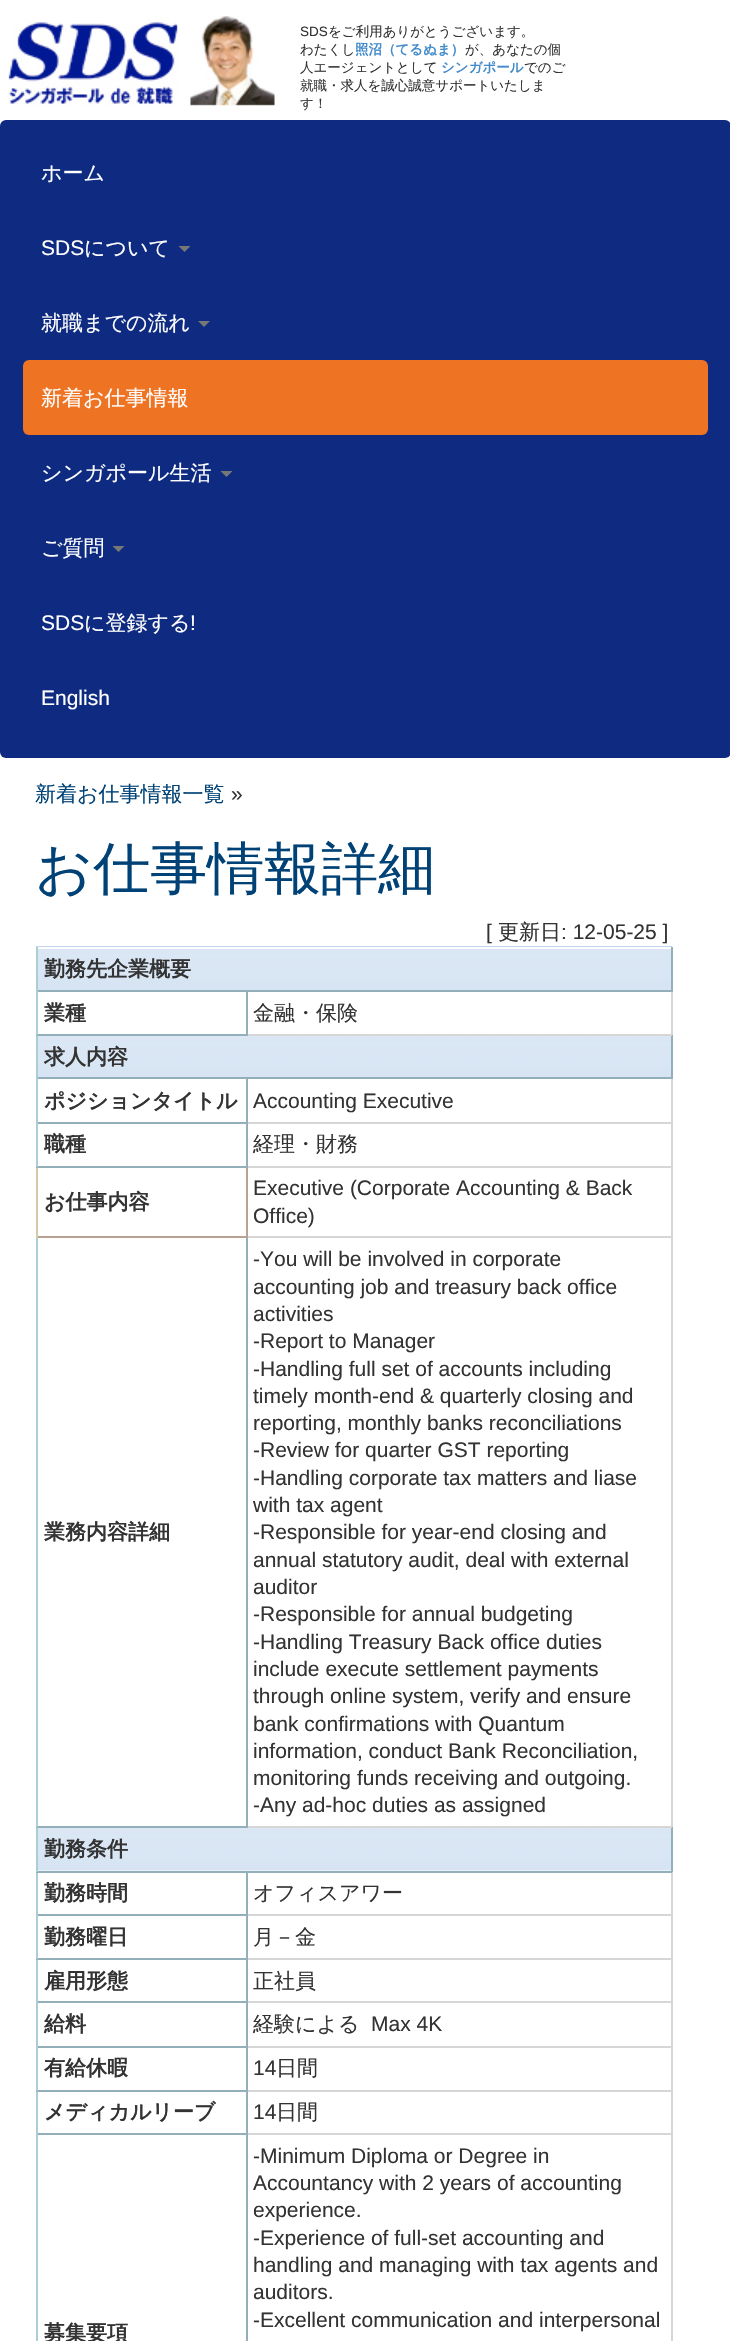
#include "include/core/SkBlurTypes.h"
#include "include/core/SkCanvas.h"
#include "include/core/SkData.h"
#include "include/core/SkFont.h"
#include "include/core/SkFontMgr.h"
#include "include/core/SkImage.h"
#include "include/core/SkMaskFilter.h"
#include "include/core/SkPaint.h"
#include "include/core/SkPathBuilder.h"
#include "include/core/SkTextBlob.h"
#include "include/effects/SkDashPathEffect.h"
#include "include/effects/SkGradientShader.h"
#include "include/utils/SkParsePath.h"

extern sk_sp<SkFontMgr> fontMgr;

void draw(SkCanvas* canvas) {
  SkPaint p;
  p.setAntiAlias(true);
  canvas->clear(SK_ColorWHITE);
  canvas->drawImageRect(SkImages::DeferredFromEncodedData(SkData::MakeFromFileName("images/1.png")), SkRect::MakeLTRB(8, 16, 275, 106), SkSamplingOptions());
  p.setColor(SkColorSetRGB(14, 43, 129));
  canvas->drawRoundRect(SkRect::MakeLTRB(0, 120, 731, 758), 6, 6, p);
  p.setColor(SkColorSetRGB(119, 119, 119));
  canvas->drawPath(SkPathBuilder().moveTo(178.5f, 246).lineTo(190.5f, 246).lineTo(184.5f, 252).close().detach(), p);
  canvas->drawPath(SkPathBuilder().moveTo(198, 321).lineTo(210, 321).lineTo(204, 327).close().detach(), p);
  p.setColor(SkColorSetRGB(238, 115, 34));
  canvas->drawRoundRect(SkRect::MakeLTRB(23, 360, 708, 435), 6, 6, p);
  p.setColor(SkColorSetRGB(119, 119, 119));
  canvas->drawPath(SkPathBuilder().moveTo(220.5f, 471).lineTo(232.5f, 471).lineTo(226.5f, 477).close().detach(), p);
  canvas->drawPath(SkPathBuilder().moveTo(112.5f, 546).lineTo(124.5f, 546).lineTo(118.5f, 552).close().detach(), p);
  canvas->drawImageRect(SkImages::DeferredFromEncodedData(SkData::MakeFromFileName("images/2.png")), SkRect::MakeLTRB(36, 946, 672, 990), SkSamplingOptions());
  p.setColor(SkColorSetRGB(253, 253, 253));
  canvas->drawRect(SkRect::MakeLTRB(36, 947, 672, 949), p);
  p.setColor(SkColorSetRGB(214, 214, 214));
  canvas->drawRect(SkRect::MakeLTRB(671, 1871, 673, 2341), p);
  p.setColor(SkColorSetRGB(147, 175, 186));
  canvas->drawRect(SkRect::MakeLTRB(671, 1826, 673, 1872), p);
  p.setColor(SkColorSetRGB(214, 214, 214));
  canvas->drawRect(SkRect::MakeLTRB(671, 1077, 673, 1827), p);
  p.setColor(SkColorSetRGB(147, 175, 186));
  canvas->drawRect(SkRect::MakeLTRB(671, 1034, 673, 1079), p);
  p.setColor(SkColorSetRGB(214, 214, 214));
  canvas->drawRect(SkRect::MakeLTRB(671, 990, 673, 1035), p);
  p.setColor(SkColorSetRGB(147, 175, 186));
  canvas->drawRect(SkRect::MakeLTRB(671, 947, 673, 992), p);
  p.setColor(SkColorSetRGB(214, 214, 214));
  canvas->drawRect(SkRect::MakeLTRB(246, 1034, 672, 1036), p);
  p.setColor(SkColorSetRGB(147, 175, 186));
  canvas->drawRect(SkRect::MakeLTRB(246, 990, 248, 1035), p);
  p.setColor(SkColorSetRGB(214, 214, 214));
  canvas->drawRect(SkRect::MakeLTRB(246, 1826, 672, 1828), p);
  p.setColor(SkColorSetRGB(147, 175, 186));
  canvas->drawRect(SkRect::MakeLTRB(246, 1236, 248, 1827), p);
  p.setColor(SkColorSetRGB(214, 214, 214));
  canvas->drawRect(SkRect::MakeLTRB(246, 1236, 672, 1238), p);
  p.setColor(SkColorSetRGB(186, 162, 147));
  canvas->drawRect(SkRect::MakeLTRB(246, 1166, 248, 1238), p);
  p.setColor(SkColorSetRGB(214, 214, 214));
  canvas->drawRect(SkRect::MakeLTRB(246, 1166, 672, 1168), p);
  p.setColor(SkColorSetRGB(147, 175, 186));
  canvas->drawRect(SkRect::MakeLTRB(246, 1122, 248, 1167), p);
  p.setColor(SkColorSetRGB(214, 214, 214));
  canvas->drawRect(SkRect::MakeLTRB(246, 1122, 672, 1124), p);
  p.setColor(SkColorSetRGB(147, 175, 186));
  canvas->drawRect(SkRect::MakeLTRB(246, 1077, 248, 1124), p);
  canvas->drawRect(SkRect::MakeLTRB(246, 2133, 248, 2341), p);
  p.setColor(SkColorSetRGB(214, 214, 214));
  canvas->drawRect(SkRect::MakeLTRB(246, 2133, 672, 2135), p);
  p.setColor(SkColorSetRGB(147, 175, 186));
  canvas->drawRect(SkRect::MakeLTRB(246, 2090, 248, 2135), p);
  p.setColor(SkColorSetRGB(214, 214, 214));
  canvas->drawRect(SkRect::MakeLTRB(246, 2090, 672, 2092), p);
  p.setColor(SkColorSetRGB(147, 175, 186));
  canvas->drawRect(SkRect::MakeLTRB(246, 2046, 248, 2091), p);
  p.setColor(SkColorSetRGB(214, 214, 214));
  canvas->drawRect(SkRect::MakeLTRB(246, 2046, 672, 2048), p);
  p.setColor(SkColorSetRGB(147, 175, 186));
  canvas->drawRect(SkRect::MakeLTRB(246, 2001, 248, 2048), p);
  p.setColor(SkColorSetRGB(214, 214, 214));
  canvas->drawRect(SkRect::MakeLTRB(246, 2001, 672, 2003), p);
  p.setColor(SkColorSetRGB(147, 175, 186));
  canvas->drawRect(SkRect::MakeLTRB(246, 1958, 248, 2003), p);
  p.setColor(SkColorSetRGB(214, 214, 214));
  canvas->drawRect(SkRect::MakeLTRB(246, 1958, 672, 1960), p);
  p.setColor(SkColorSetRGB(147, 175, 186));
  canvas->drawRect(SkRect::MakeLTRB(246, 1914, 248, 1959), p);
  p.setColor(SkColorSetRGB(214, 214, 214));
  canvas->drawRect(SkRect::MakeLTRB(246, 1914, 672, 1916), p);
  p.setColor(SkColorSetRGB(147, 175, 186));
  canvas->drawRect(SkRect::MakeLTRB(246, 1871, 248, 1916), p);
  p.setColor(SkColorSetRGB(169, 206, 211));
  canvas->drawRect(SkRect::MakeLTRB(36, 2133, 38, 2341), p);
  p.setColor(SkColorSetRGB(147, 175, 186));
  canvas->drawRect(SkRect::MakeLTRB(36, 2133, 248, 2135), p);
  p.setColor(SkColorSetRGB(169, 206, 211));
  canvas->drawRect(SkRect::MakeLTRB(36, 2090, 38, 2135), p);
  p.setColor(SkColorSetRGB(147, 175, 186));
  canvas->drawRect(SkRect::MakeLTRB(36, 2090, 248, 2092), p);
  p.setColor(SkColorSetRGB(169, 206, 211));
  canvas->drawRect(SkRect::MakeLTRB(36, 2046, 38, 2091), p);
  p.setColor(SkColorSetRGB(147, 175, 186));
  canvas->drawRect(SkRect::MakeLTRB(36, 2046, 248, 2048), p);
  p.setColor(SkColorSetRGB(169, 206, 211));
  canvas->drawRect(SkRect::MakeLTRB(36, 2001, 38, 2048), p);
  p.setColor(SkColorSetRGB(147, 175, 186));
  canvas->drawRect(SkRect::MakeLTRB(36, 2001, 248, 2003), p);
  p.setColor(SkColorSetRGB(169, 206, 211));
  canvas->drawRect(SkRect::MakeLTRB(36, 1958, 38, 2003), p);
  p.setColor(SkColorSetRGB(147, 175, 186));
  canvas->drawRect(SkRect::MakeLTRB(36, 1958, 248, 1960), p);
  p.setColor(SkColorSetRGB(169, 206, 211));
  canvas->drawRect(SkRect::MakeLTRB(36, 1914, 38, 1959), p);
  p.setColor(SkColorSetRGB(147, 175, 186));
  canvas->drawRect(SkRect::MakeLTRB(36, 1914, 248, 1916), p);
  p.setColor(SkColorSetRGB(169, 206, 211));
  canvas->drawRect(SkRect::MakeLTRB(36, 1871, 38, 1916), p);
  p.setColor(SkColorSetRGB(147, 175, 186));
  canvas->drawRect(SkRect::MakeLTRB(36, 1871, 672, 1873), p);
  p.setColor(SkColorSetRGB(169, 206, 211));
  canvas->drawRect(SkRect::MakeLTRB(36, 1826, 38, 1872), p);
  p.setColor(SkColorSetRGB(147, 175, 186));
  canvas->drawRect(SkRect::MakeLTRB(36, 1826, 248, 1828), p);
  p.setColor(SkColorSetRGB(169, 206, 211));
  canvas->drawRect(SkRect::MakeLTRB(36, 1236, 38, 1827), p);
  p.setColor(SkColorSetRGB(186, 162, 147));
  canvas->drawRect(SkRect::MakeLTRB(36, 1236, 248, 1238), p);
  p.setColor(SkColorSetRGB(211, 202, 169));
  canvas->drawRect(SkRect::MakeLTRB(36, 1166, 38, 1238), p);
  p.setColor(SkColorSetRGB(147, 175, 186));
  canvas->drawRect(SkRect::MakeLTRB(36, 1166, 248, 1168), p);
  p.setColor(SkColorSetRGB(169, 206, 211));
  canvas->drawRect(SkRect::MakeLTRB(36, 1122, 38, 1167), p);
  p.setColor(SkColorSetRGB(147, 175, 186));
  canvas->drawRect(SkRect::MakeLTRB(36, 1122, 248, 1124), p);
  p.setColor(SkColorSetRGB(169, 206, 211));
  canvas->drawRect(SkRect::MakeLTRB(36, 1077, 38, 1124), p);
  p.setColor(SkColorSetRGB(147, 175, 186));
  canvas->drawRect(SkRect::MakeLTRB(36, 1077, 672, 1079), p);
  p.setColor(SkColorSetRGB(169, 206, 211));
  canvas->drawRect(SkRect::MakeLTRB(36, 1034, 38, 1079), p);
  p.setColor(SkColorSetRGB(147, 175, 186));
  canvas->drawRect(SkRect::MakeLTRB(36, 1034, 248, 1036), p);
  p.setColor(SkColorSetRGB(169, 206, 211));
  canvas->drawRect(SkRect::MakeLTRB(36, 990, 38, 1035), p);
  p.setColor(SkColorSetRGB(147, 175, 186));
  canvas->drawRect(SkRect::MakeLTRB(36, 990, 672, 992), p);
  p.setColor(SkColorSetRGB(169, 206, 211));
  canvas->drawRect(SkRect::MakeLTRB(36, 947, 38, 992), p);
  canvas->drawImageRect(SkImages::DeferredFromEncodedData(SkData::MakeFromFileName("images/3.png")), SkRect::MakeLTRB(38, 1036, 671, 1077), SkSamplingOptions());
  canvas->drawImageRect(SkImages::DeferredFromEncodedData(SkData::MakeFromFileName("images/4.png")), SkRect::MakeLTRB(38, 1828, 671, 1871), SkSamplingOptions());
  SkFont font1(fontMgr->matchFamilyStyle("Liberation Sans", SkFontStyle::Normal()), 13.5f);
  font1.setSubpixel(true);
  p.setColor(SkColorSetRGB(51, 51, 51));
  canvas->drawString("SDS", 300, 36, font1, p);
  SkFont font2(fontMgr->matchFamilyStyle("WenQuanYi Zen Hei", SkFontStyle(500, SkFontStyle::kNormal_Width, SkFontStyle::kUpright_Slant)), 13.5f);
  font2.setSubpixel(true);
  canvas->drawString("をご利用ありがとうございます。", 328, 36, font2, p);
  canvas->drawString("わたくし", 300, 54, font2, p);
  SkFont font3(fontMgr->matchFamilyStyle("WenQuanYi Zen Hei", SkFontStyle::Bold()), 13.5f);
  font3.setSubpixel(true);
  p.setColor(SkColorSetRGB(66, 139, 202));
  canvas->drawString("照沼（てるぬま）", 355, 54, font3, p);
  p.setColor(SkColorSetRGB(51, 51, 51));
  canvas->drawString("が、あなたの個", 465, 54, font2, p);
  canvas->drawString("人エージェントとして", 300, 72, font2, p);
  p.setColor(SkColorSetRGB(66, 139, 202));
  canvas->drawString("シンガポール", 441, 72, font3, p);
  p.setColor(SkColorSetRGB(51, 51, 51));
  canvas->drawString("でのご", 524, 72, font2, p);
  canvas->drawString("就職・求人を誠心誠意サポートいたしま", 300, 90, font2, p);
  canvas->drawString("す！", 300, 108, font2, p);
  SkFont font4(fontMgr->matchFamilyStyle("WenQuanYi Zen Hei", SkFontStyle(500, SkFontStyle::kNormal_Width, SkFontStyle::kUpright_Slant)), 21);
  font4.setSubpixel(true);
  p.setColor(SK_ColorWHITE);
  canvas->drawString("ホーム", 41, 180, font4, p);
  SkFont font5(fontMgr->matchFamilyStyle("Liberation Sans", SkFontStyle::Normal()), 21);
  font5.setSubpixel(true);
  canvas->drawString("SDS", 41, 255, font5, p);
  canvas->drawString("について", 84, 255, font4, p);
  canvas->drawString("就職までの流れ", 41, 330, font4, p);
  canvas->drawString("新着お仕事情報", 41, 405, font4, p);
  canvas->drawString("シンガポール生活", 41, 480, font4, p);
  canvas->drawString("ご質問", 41, 555, font4, p);
  canvas->drawString("SDS", 41, 630, font5, p);
  canvas->drawString("に登録する", 84, 630, font4, p);
  canvas->drawString("!", 190, 630, font5, p);
  canvas->drawString("English", 41, 705, font5, p);
  p.setColor(SkColorSetRGB(0, 66, 118));
  canvas->drawString("新着お仕事情報一覧", 35, 801, font4, p);
  p.setColor(SkColorSetRGB(51, 51, 51));
  canvas->drawString("»", 231, 801, font5, p);
  SkFont font6(fontMgr->matchFamilyStyle("WenQuanYi Zen Hei", SkFontStyle(500, SkFontStyle::kNormal_Width, SkFontStyle::kUpright_Slant)), 57);
  font6.setSubpixel(true);
  p.setColor(SkColorSetRGB(0, 66, 118));
  canvas->drawString("お仕事情報詳細", 35, 888, font6, p);
  p.setColor(SkColorSetRGB(51, 51, 51));
  canvas->drawString("[", 486, 939, font5, p);
  canvas->drawString("更新日", 498, 939, font4, p);
  canvas->drawString(": 12-05-25 ]", 561, 939, font5, p);
  SkFont font7(fontMgr->matchFamilyStyle("WenQuanYi Zen Hei", SkFontStyle::Bold()), 21);
  font7.setSubpixel(true);
  canvas->drawString("勤務先企業概要", 44, 976, font7, p);
  canvas->drawString("業種", 44, 1020, font7, p);
  canvas->drawString("金融・保険", 253, 1020, font4, p);
  canvas->drawString("求人内容", 44, 1064, font7, p);
  canvas->drawString("ポジションタイトル", 44, 1108, font7, p);
  canvas->drawString("Accounting Executive", 253, 1108, font5, p);
  canvas->drawString("職種", 44, 1151, font7, p);
  canvas->drawString("経理・財務", 253, 1151, font4, p);
  canvas->drawString("お仕事内容", 44, 1209, font7, p);
  canvas->drawString("Executive (Corporate Accounting & Back", 253, 1195, font5, p);
  canvas->drawString("Office)", 253, 1223, font5, p);
  canvas->drawString("業務内容詳細", 44, 1539, font7, p);
  canvas->drawString("-You will be involved in corporate", 253, 1266, font5, p);
  canvas->drawString("accounting job and treasury back office", 253, 1294, font5, p);
  canvas->drawString("activities", 253, 1321, font5, p);
  canvas->drawString("-Report to Manager", 253, 1348, font5, p);
  canvas->drawString("-Handling full set of accounts including", 253, 1376, font5, p);
  canvas->drawString("timely month-end & quarterly closing and", 253, 1403, font5, p);
  canvas->drawString("reporting, monthly banks reconciliations", 253, 1430, font5, p);
  canvas->drawString("-Review for quarter GST reporting", 253, 1457, font5, p);
  canvas->drawString("-Handling corporate tax matters and liase", 253, 1485, font5, p);
  canvas->drawString("with tax agent", 253, 1512, font5, p);
  canvas->drawString("-Responsible for year-end closing and", 253, 1539, font5, p);
  canvas->drawString("annual statutory audit, deal with external", 253, 1567, font5, p);
  canvas->drawString("auditor", 253, 1594, font5, p);
  canvas->drawString("-Responsible for annual budgeting", 253, 1621, font5, p);
  canvas->drawString("-Handling Treasury Back office duties", 253, 1649, font5, p);
  canvas->drawString("include execute settlement payments", 253, 1676, font5, p);
  canvas->drawString("through online system, verify and ensure", 253, 1703, font5, p);
  canvas->drawString("bank confirmations with Quantum", 253, 1731, font5, p);
  canvas->drawString("information, conduct Bank Reconciliation,", 253, 1758, font5, p);
  canvas->drawString("monitoring funds receiving and outgoing.", 253, 1785, font5, p);
  canvas->drawString("-Any ad-hoc duties as assigned", 253, 1812, font5, p);
  canvas->drawString("勤務条件", 44, 1856, font7, p);
  canvas->drawString("勤務時間", 44, 1900, font7, p);
  canvas->drawString("オフィスアワー", 253, 1900, font4, p);
  canvas->drawString("勤務曜日", 44, 1944, font7, p);
  canvas->drawString("月－金", 253, 1944, font4, p);
  canvas->drawString("雇用形態", 44, 1988, font7, p);
  canvas->drawString("正社員", 253, 1988, font4, p);
  canvas->drawString("給料", 44, 2031, font7, p);
  canvas->drawString("経験による", 253, 2031, font4, p);
  canvas->drawString("Max 4K", 371, 2031, font5, p);
  canvas->drawString("有給休暇", 44, 2075, font7, p);
  canvas->drawString("14", 253, 2075, font5, p);
  canvas->drawString("日間", 276, 2075, font4, p);
  canvas->drawString("メディカルリーブ", 44, 2119, font7, p);
  canvas->drawString("14", 253, 2119, font5, p);
  canvas->drawString("日間", 276, 2119, font4, p);
  canvas->drawString("募集要項", 44, 2340, font7, p);
  canvas->drawString("-Minimum Diploma or Degree in", 253, 2163, font5, p);
  canvas->drawString("Accountancy with 2 years of accounting", 253, 2190, font5, p);
  canvas->drawString("experience.", 253, 2217, font5, p);
  canvas->drawString("-Experience of full-set accounting and", 253, 2245, font5, p);
  canvas->drawString("handling and managing with tax agents and", 253, 2272, font5, p);
  canvas->drawString("auditors.", 253, 2299, font5, p);
  canvas->drawString("-Excellent communication and interpersonal", 253, 2327, font5, p);
}
